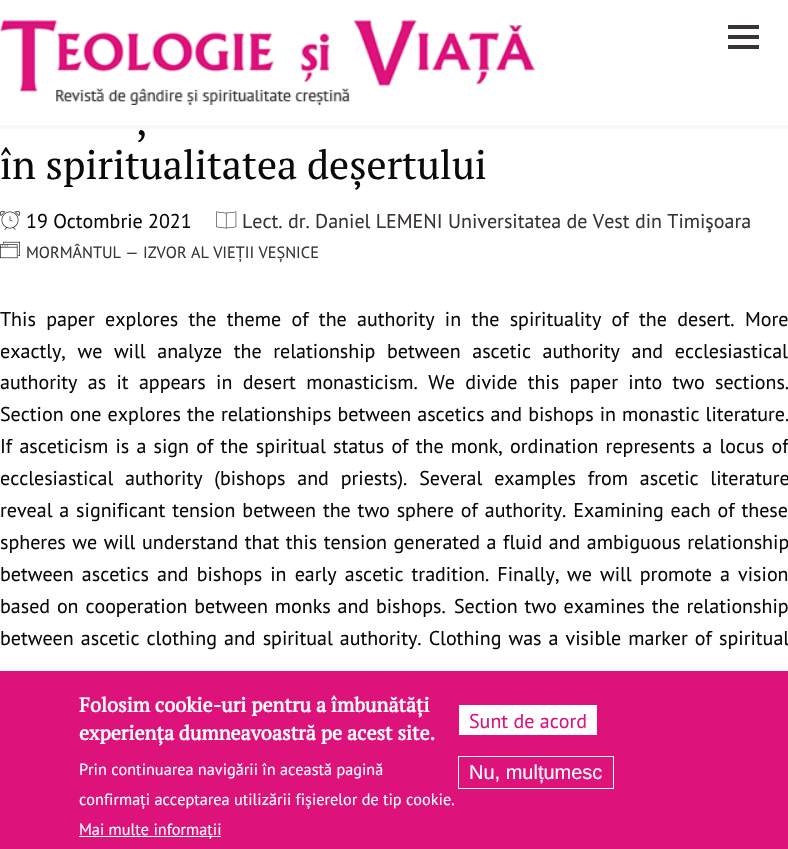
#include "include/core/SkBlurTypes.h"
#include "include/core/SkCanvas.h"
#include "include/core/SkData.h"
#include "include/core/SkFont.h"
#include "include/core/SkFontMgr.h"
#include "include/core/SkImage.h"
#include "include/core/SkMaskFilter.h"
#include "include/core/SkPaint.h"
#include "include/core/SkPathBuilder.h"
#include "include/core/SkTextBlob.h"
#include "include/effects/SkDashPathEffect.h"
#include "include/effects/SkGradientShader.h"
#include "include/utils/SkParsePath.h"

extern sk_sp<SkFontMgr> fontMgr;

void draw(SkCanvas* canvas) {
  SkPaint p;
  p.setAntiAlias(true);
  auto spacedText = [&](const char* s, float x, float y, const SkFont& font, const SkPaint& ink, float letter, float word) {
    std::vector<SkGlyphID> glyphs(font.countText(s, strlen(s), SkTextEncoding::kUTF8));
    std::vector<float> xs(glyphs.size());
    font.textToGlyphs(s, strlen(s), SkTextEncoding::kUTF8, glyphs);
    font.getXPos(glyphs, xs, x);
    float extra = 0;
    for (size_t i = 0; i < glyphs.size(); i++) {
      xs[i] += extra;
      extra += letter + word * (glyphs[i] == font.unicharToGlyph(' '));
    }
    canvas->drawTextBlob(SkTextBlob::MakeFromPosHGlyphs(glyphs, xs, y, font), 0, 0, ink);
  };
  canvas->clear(SK_ColorWHITE);
  p.setColor(SkColorSetRGB(248, 248, 248));
  canvas->drawRect(SkRect::MakeLTRB(0, 125, 788, 129), p);
  canvas->drawImageRect(SkImages::DeferredFromEncodedData(SkData::MakeFromFileName("images/1.png")), SkRect::MakeLTRB(0, 20, 535, 105), SkSamplingOptions());
  p.setColor(SkColorSetRGB(58, 51, 53));
  canvas->drawRect(SkRect::MakeLTRB(728, 45, 759, 49), p);
  canvas->drawRect(SkRect::MakeLTRB(728, 35, 759, 39), p);
  canvas->drawRect(SkRect::MakeLTRB(728, 25, 759, 29), p);
  canvas->drawImageRect(SkImages::DeferredFromEncodedData(SkData::MakeFromFileName("images/2.png")), SkRect::MakeLTRB(0, 210, 20, 230), SkSamplingOptions());
  canvas->drawImageRect(SkImages::DeferredFromEncodedData(SkData::MakeFromFileName("images/3.png")), SkRect::MakeLTRB(216, 211, 237, 229), SkSamplingOptions());
  canvas->drawImageRect(SkImages::DeferredFromEncodedData(SkData::MakeFromFileName("images/4.png")), SkRect::MakeLTRB(0, 241, 20, 259), SkSamplingOptions());
  p.setColor(SkColorSetRGB(221, 18, 123));
  canvas->drawRect(SkRect::MakeLTRB(0, 671, 788, 849), p);
  p.setColor(SK_ColorWHITE);
  canvas->drawRect(SkRect::MakeLTRB(79, 836, 221, 837), p);
  canvas->drawRect(SkRect::MakeLTRB(459, 705, 597, 735), p);
  p.setStyle(SkPaint::kStroke_Style);
  p.setStrokeWidth(1);
  canvas->drawRect(SkRect::MakeLTRB(458.5f, 756.5f, 613.5f, 788.5f), p);
  SkFont font1(fontMgr->matchFamilyStyle("PT Serif", SkFontStyle::Normal()), 40);
  font1.setSubpixel(true);
  p.setStyle(SkPaint::kFill_Style);
  p.setColor(SkColorSetRGB(10, 10, 10));
  canvas->drawString(",", 136, 135, font1, p);
  canvas->drawString("în spiritualitatea deșertului", 0, 179, font1, p);
  SkFont font2(fontMgr->matchFamilyStyle("PT Sans", SkFontStyle::Normal()), 20);
  font2.setSubpixel(true);
  canvas->drawString("19 Octombrie 2021", 26, 228, font2, p);
  p.setColor(SkColorSetRGB(58, 51, 53));
  canvas->drawString("Lect. dr. Daniel LEMENI Universitatea de Vest din Timişoara", 242, 228, font2, p);
  SkFont font3(fontMgr->matchFamilyStyle("PT Sans", SkFontStyle::Normal()), 16.25f);
  font3.setSubpixel(true);
  canvas->drawString("MORMÂNTUL — IZVOR AL VIEȚII VEȘNICE", 26, 258, font3, p);
  p.setColor(SkColorSetRGB(10, 10, 10));
  spacedText("This paper explores the theme of the authority in the spirituality of the desert. More", 0, 326, font2, p, 0, 5);
  spacedText("exactly, we will analyze the relationship between ascetic authority and ecclesiastical", 0, 358, font2, p, 0, 6.25f);
  spacedText("authority as it appears in desert monasticism. We divide this paper into two sections.", 0, 389, font2, p, 0, 5);
  spacedText("Section one explores the relationships between ascetics and bishops in monastic literature.", 0, 421, font2, p, 0, 0.75f);
  spacedText("If asceticism is a sign of the spiritual status of the monk, ordination represents a locus of", 0, 453, font2, p, 0, 1.9f);
  spacedText("ecclesiastical authority (bishops and priests). Several examples from ascetic literature", 0, 485, font2, p, 0, 6.5f);
  spacedText("reveal a significant tension between the two sphere of authority. Examining each of these", 0, 517, font2, p, 0, 1.5f);
  spacedText("spheres we will understand that this tension generated a fluid and ambiguous relationship", 0, 549, font2, p, 0, 1.2f);
  spacedText("between ascetics and bishops in early ascetic tradition. Finally,", 0, 581, font2, p, 0, 2.75f);
  spacedText("we will promote a vision", 567, 581, font2, p, 0, 2.75f);
  spacedText("based on cooperation between monks and bishops.", 0, 613, font2, p, 0, 1.5f);
  spacedText("Section two examines the relationship", 454, 613, font2, p, 0, 1.5f);
  spacedText("between ascetic clothing and spiritual authority. Clothing was a visible marker of spiritual", 0, 645, font2, p, 0, 1.75f);
  SkFont font4(fontMgr->matchFamilyStyle("PT Serif", SkFontStyle::Bold()), 20);
  font4.setSubpixel(true);
  p.setColor(SK_ColorWHITE);
  canvas->drawString("Folosim cookie-uri pentru a îmbunătăți", 79, 712, font4, p);
  canvas->drawString("experiența dumneavoastră pe acest site.", 79, 740, font4, p);
  canvas->drawString("Prin continuarea navigării în această pagină", 79, 775, font3, p);
  canvas->drawString("confirmați acceptarea utilizării fișierelor de tip cookie.", 79, 805, font3, p);
  canvas->drawString("Mai multe informații", 79, 835, font3, p);
  p.setColor(SkColorSetRGB(221, 18, 123));
  canvas->drawString("Sunt de acord", 469, 728, font2, p);
  SkFont font5(fontMgr->matchFamilyStyle("Liberation Sans", SkFontStyle::Normal()), 20);
  font5.setSubpixel(true);
  p.setColor(SK_ColorWHITE);
  canvas->drawString("Nu, mulțumesc", 469, 779, font5, p);
}
